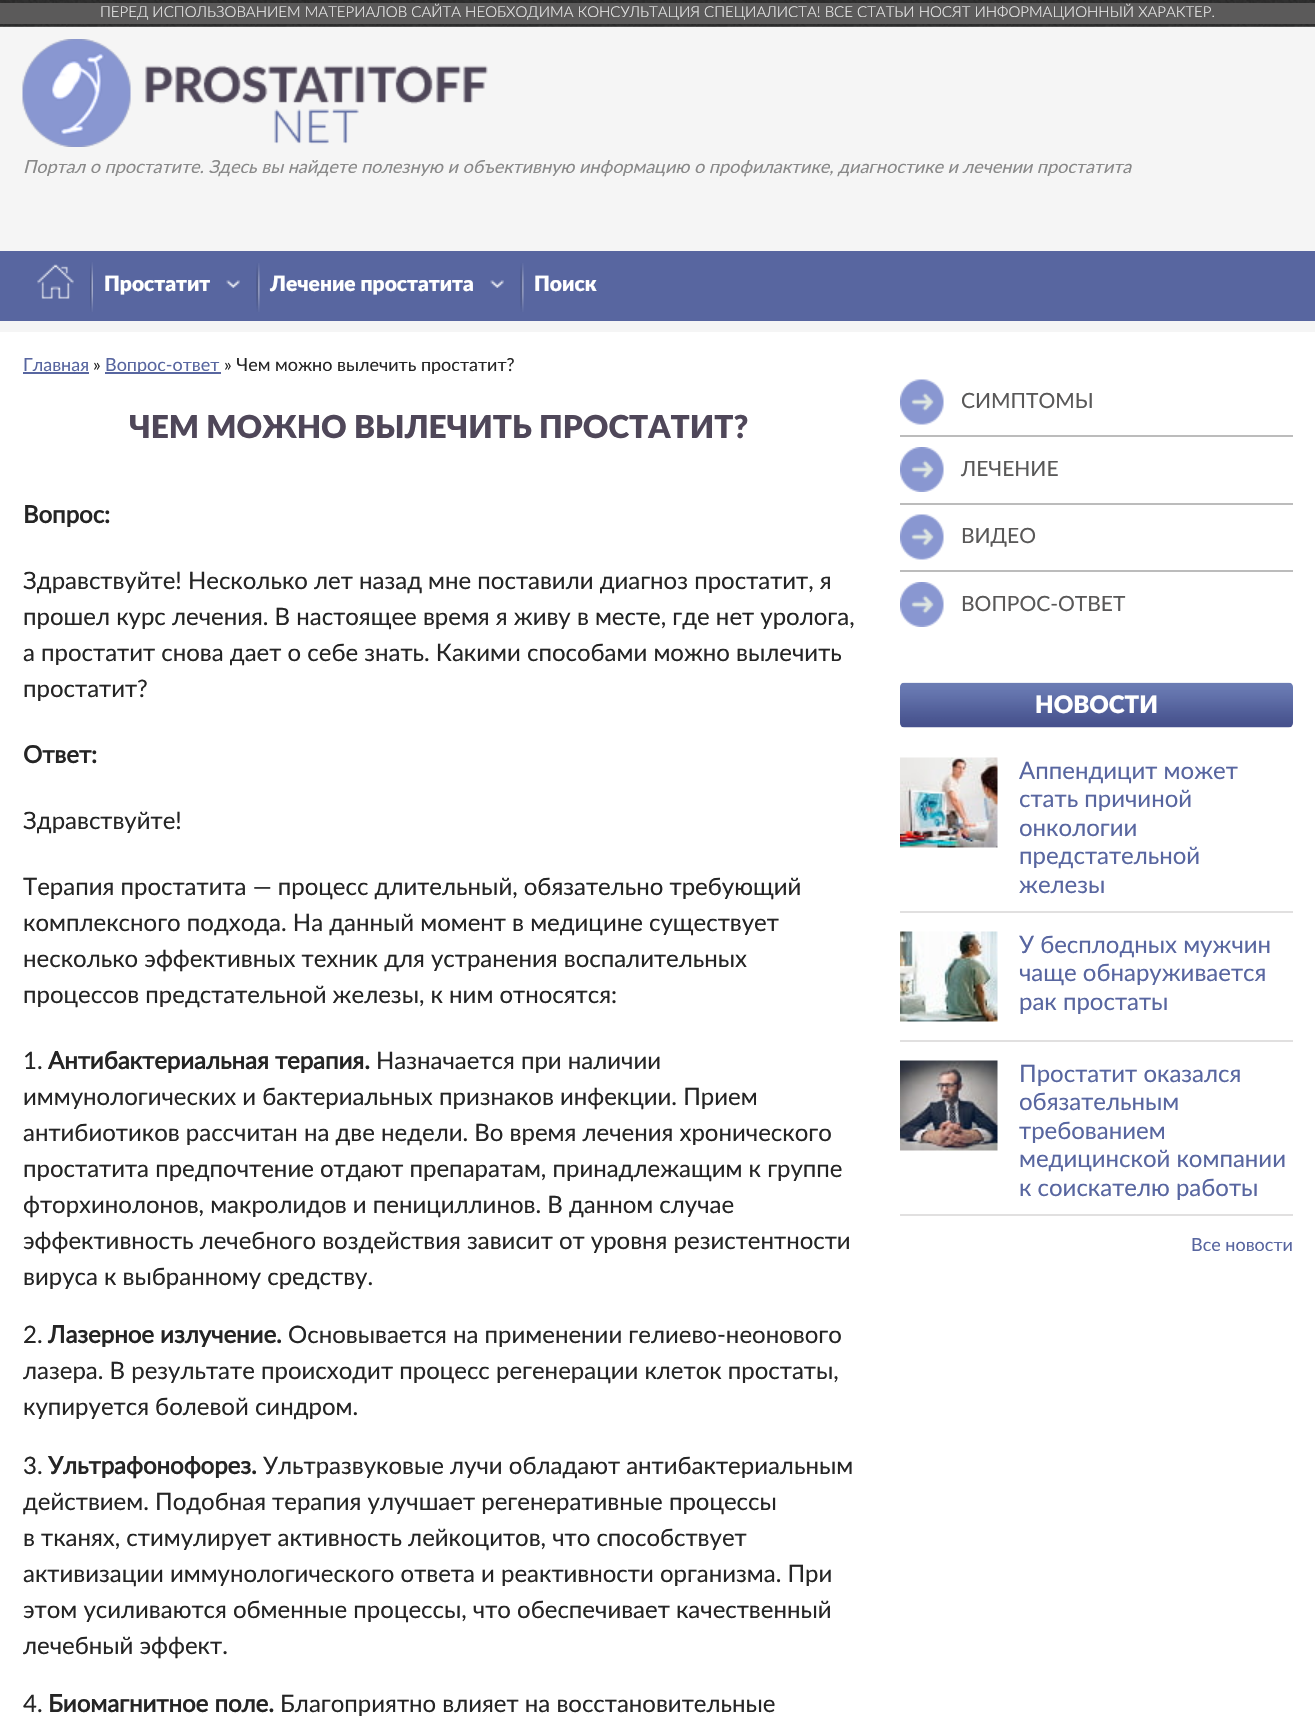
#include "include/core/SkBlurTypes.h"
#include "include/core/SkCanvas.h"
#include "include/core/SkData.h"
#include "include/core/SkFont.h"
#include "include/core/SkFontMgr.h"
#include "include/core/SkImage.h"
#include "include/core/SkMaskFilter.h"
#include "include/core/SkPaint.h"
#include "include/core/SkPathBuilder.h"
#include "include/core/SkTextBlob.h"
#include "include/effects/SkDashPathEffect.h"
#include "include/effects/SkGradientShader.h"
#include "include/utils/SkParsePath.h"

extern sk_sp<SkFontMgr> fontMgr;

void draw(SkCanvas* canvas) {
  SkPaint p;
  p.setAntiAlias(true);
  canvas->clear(SK_ColorWHITE);
  p.setColor(SkColorSetRGB(245, 245, 245));
  canvas->drawRect(SkRect::MakeLTRB(0, 26, 1315, 332), p);
  canvas->drawImageRect(SkImages::DeferredFromEncodedData(SkData::MakeFromFileName("images/1.png")), SkRect::MakeLTRB(0, 0, 1315, 27), SkSamplingOptions());
  p.setColor(SkColorSetRGB(91, 90, 90));
  canvas->drawRect(SkRect::MakeLTRB(0, 3, 1315, 24), p);
  canvas->drawImageRect(SkImages::DeferredFromEncodedData(SkData::MakeFromFileName("images/2.png")), SkRect::MakeLTRB(22, 39, 488, 147), SkSamplingOptions());
  p.setColor(SkColorSetRGB(88, 102, 160));
  canvas->drawRect(SkRect::MakeLTRB(0, 251, 1315, 321), p);
  canvas->drawImageRect(SkImages::DeferredFromEncodedData(SkData::MakeFromFileName("images/3.png")), SkRect::MakeLTRB(37, 264, 74, 299), SkSamplingOptions());
  canvas->drawImageRect(SkImages::DeferredFromEncodedData(SkData::MakeFromFileName("images/4.png")), SkRect::MakeLTRB(90, 262, 93, 312), SkSamplingOptions());
  canvas->drawImageRect(SkImages::DeferredFromEncodedData(SkData::MakeFromFileName("images/5.png")), SkRect::MakeLTRB(226, 280, 240, 288), SkSamplingOptions());
  canvas->drawImageRect(SkImages::DeferredFromEncodedData(SkData::MakeFromFileName("images/6.png")), SkRect::MakeLTRB(256, 263, 260, 312), SkSamplingOptions());
  canvas->drawImageRect(SkImages::DeferredFromEncodedData(SkData::MakeFromFileName("images/5.png")), SkRect::MakeLTRB(490, 280, 504, 288), SkSamplingOptions());
  canvas->drawImageRect(SkImages::DeferredFromEncodedData(SkData::MakeFromFileName("images/6.png")), SkRect::MakeLTRB(520, 263, 524, 312), SkSamplingOptions());
  canvas->drawRect(SkRect::MakeLTRB(23, 372, 89, 374), p);
  canvas->drawRect(SkRect::MakeLTRB(105, 372, 221, 374), p);
  p.setColor(SkColorSetRGB(188, 188, 188));
  canvas->drawRect(SkRect::MakeLTRB(900, 435, 1293, 437), p);
  canvas->drawImageRect(SkImages::DeferredFromEncodedData(SkData::MakeFromFileName("images/7.png")), SkRect::MakeLTRB(900, 379, 944, 425), SkSamplingOptions());
  canvas->drawRect(SkRect::MakeLTRB(900, 503, 1293, 505), p);
  canvas->drawImageRect(SkImages::DeferredFromEncodedData(SkData::MakeFromFileName("images/8.png")), SkRect::MakeLTRB(900, 447, 944, 492), SkSamplingOptions());
  canvas->drawRect(SkRect::MakeLTRB(900, 570, 1293, 572), p);
  canvas->drawImageRect(SkImages::DeferredFromEncodedData(SkData::MakeFromFileName("images/7.png")), SkRect::MakeLTRB(900, 514, 944, 560), SkSamplingOptions());
  canvas->drawImageRect(SkImages::DeferredFromEncodedData(SkData::MakeFromFileName("images/8.png")), SkRect::MakeLTRB(900, 582, 944, 627), SkSamplingOptions());
  canvas->drawImageRect(SkImages::DeferredFromEncodedData(SkData::MakeFromFileName("images/9.png")), SkRect::MakeLTRB(900, 682, 1293, 728), SkSamplingOptions());
  p.setColor(SkColorSetRGB(225, 224, 224));
  canvas->drawRect(SkRect::MakeLTRB(900, 911, 1293, 913), p);
  canvas->drawImageRect(SkImages::DeferredFromEncodedData(SkData::MakeFromFileName("images/10.png")), SkRect::MakeLTRB(900, 757, 998, 848), SkSamplingOptions());
  canvas->drawRect(SkRect::MakeLTRB(900, 1040, 1293, 1042), p);
  canvas->drawImageRect(SkImages::DeferredFromEncodedData(SkData::MakeFromFileName("images/11.png")), SkRect::MakeLTRB(900, 931, 998, 1022), SkSamplingOptions());
  canvas->drawRect(SkRect::MakeLTRB(900, 1214, 1293, 1216), p);
  canvas->drawImageRect(SkImages::DeferredFromEncodedData(SkData::MakeFromFileName("images/12.png")), SkRect::MakeLTRB(900, 1060, 998, 1151), SkSamplingOptions());
  SkFont font1(fontMgr->matchFamilyStyle("Lato", SkFontStyle(300, SkFontStyle::kNormal_Width, SkFontStyle::kUpright_Slant)), 15);
  font1.setSubpixel(true);
  p.setColor(SkColorSetRGB(235, 235, 235));
  canvas->drawString("ПЕРЕД ИСПОЛЬЗОВАНИЕМ МАТЕРИАЛОВ САЙТА НЕОБХОДИМА КОНСУЛЬТАЦИЯ СПЕЦИАЛИСТА! ВСЕ СТАТЬИ НОСЯТ ИНФОРМАЦИОННЫЙ ХАРАКТЕР.", 100, 17, font1, p);
  SkFont font2(fontMgr->matchFamilyStyle("Lato", SkFontStyle::Italic()), 18);
  font2.setSubpixel(true);
  p.setColor(SkColorSetRGB(137, 137, 137));
  canvas->drawString("Портал о простатите. Здесь вы найдете полезную и объективную информацию о профилактике, диагностике и лечении простатита", 23, 173, font2, p);
  SkFont font3(fontMgr->matchFamilyStyle("Lato", SkFontStyle(900, SkFontStyle::kNormal_Width, SkFontStyle::kUpright_Slant)), 21);
  font3.setSubpixel(true);
  p.setColor(SK_ColorWHITE);
  canvas->drawString("Простатит", 104, 291, font3, p);
  canvas->drawString("Лечение простатита", 270, 291, font3, p);
  canvas->drawString("Поиск", 534, 291, font3, p);
  SkFont font4(fontMgr->matchFamilyStyle("Lato", SkFontStyle::Normal()), 18);
  font4.setSubpixel(true);
  p.setColor(SkColorSetRGB(88, 102, 160));
  canvas->drawString("Главная", 23, 371, font4, p);
  p.setColor(SkColorSetRGB(37, 37, 37));
  canvas->drawString("»", 93, 371, font4, p);
  p.setColor(SkColorSetRGB(88, 102, 160));
  canvas->drawString("Вопрос-ответ", 105, 371, font4, p);
  p.setColor(SkColorSetRGB(37, 37, 37));
  canvas->drawString("» Чем можно вылечить простатит?", 224, 371, font4, p);
  SkFont font5(fontMgr->matchFamilyStyle("Lato", SkFontStyle(900, SkFontStyle::kNormal_Width, SkFontStyle::kUpright_Slant)), 31.5f);
  font5.setSubpixel(true);
  p.setColor(SkColorSetRGB(79, 71, 89));
  canvas->drawString("ЧЕМ МОЖНО ВЫЛЕЧИТЬ ПРОСТАТИТ?", 129, 438, font5, p);
  SkFont font6(fontMgr->matchFamilyStyle("Lato", SkFontStyle::Bold()), 24);
  font6.setSubpixel(true);
  p.setColor(SkColorSetRGB(37, 37, 37));
  canvas->drawString("Вопрос:", 23, 523, font6, p);
  SkFont font7(fontMgr->matchFamilyStyle("Lato", SkFontStyle::Normal()), 24);
  font7.setSubpixel(true);
  canvas->drawString("Здравствуйте! Несколько лет назад мне поставили диагноз простатит, я", 23, 589, font7, p);
  canvas->drawString("прошел курс лечения. В настоящее время я живу в месте, где нет уролога,", 23, 625, font7, p);
  canvas->drawString("а простатит снова дает о себе знать. Какими способами можно вылечить", 23, 661, font7, p);
  canvas->drawString("простатит?", 23, 697, font7, p);
  canvas->drawString("Ответ:", 23, 763, font6, p);
  canvas->drawString("Здравствуйте!", 23, 829, font7, p);
  canvas->drawString("Терапия простатита — процесс длительный, обязательно требующий", 23, 895, font7, p);
  canvas->drawString("комплексного подхода. На данный момент в медицине существует", 23, 931, font7, p);
  canvas->drawString("несколько эффективных техник для устранения воспалительных", 23, 967, font7, p);
  canvas->drawString("процессов предстательной железы, к ним относятся:", 23, 1003, font7, p);
  canvas->drawString("1.", 23, 1069, font7, p);
  canvas->drawString("Антибактериальная терапия.", 48, 1069, font6, p);
  canvas->drawString("Назначается при наличии", 376, 1069, font7, p);
  canvas->drawString("иммунологических и бактериальных признаков инфекции. Прием", 23, 1105, font7, p);
  canvas->drawString("антибиотиков рассчитан на две недели. Во время лечения хронического", 23, 1141, font7, p);
  canvas->drawString("простатита предпочтение отдают препаратам, принадлежащим к группе", 23, 1177, font7, p);
  canvas->drawString("фторхинолонов, макролидов и пенициллинов. В данном случае", 23, 1213, font7, p);
  canvas->drawString("эффективность лечебного воздействия зависит от уровня резистентности", 23, 1249, font7, p);
  canvas->drawString("вируса к выбранному средству.", 23, 1285, font7, p);
  canvas->drawString("2.", 23, 1343, font7, p);
  canvas->drawString("Лазерное излучение.", 48, 1343, font6, p);
  canvas->drawString("Основывается на применении гелиево-неонового", 288, 1343, font7, p);
  canvas->drawString("лазера. В результате происходит процесс регенерации клеток простаты,", 23, 1379, font7, p);
  canvas->drawString("купируется болевой синдром.", 23, 1415, font7, p);
  canvas->drawString("3.", 23, 1474, font7, p);
  canvas->drawString("Ультрафонофорез.", 48, 1474, font6, p);
  canvas->drawString("Ультразвуковые лучи обладают антибактериальным", 263, 1474, font7, p);
  canvas->drawString("действием. Подобная терапия улучшает регенеративные процессы", 23, 1510, font7, p);
  canvas->drawString("в тканях, стимулирует активность лейкоцитов, что способствует", 23, 1546, font7, p);
  canvas->drawString("активизации иммунологического ответа и реактивности организма. При", 23, 1582, font7, p);
  canvas->drawString("этом усиливаются обменные процессы, что обеспечивает качественный", 23, 1618, font7, p);
  canvas->drawString("лечебный эффект.", 23, 1654, font7, p);
  canvas->drawString("4.", 23, 1712, font7, p);
  canvas->drawString("Биомагнитное поле.", 48, 1712, font6, p);
  canvas->drawString("Благоприятно влияет на восстановительные", 280, 1712, font7, p);
  SkFont font8(fontMgr->matchFamilyStyle("Lato", SkFontStyle::Normal()), 21);
  font8.setSubpixel(true);
  p.setColor(SkColorSetRGB(89, 88, 88));
  canvas->drawString("СИМПТОМЫ", 961, 408, font8, p);
  canvas->drawString("ЛЕЧЕНИЕ", 961, 476, font8, p);
  canvas->drawString("ВИДЕО", 961, 543, font8, p);
  canvas->drawString("ВОПРОС-ОТВЕТ", 961, 611, font8, p);
  SkFont font9(fontMgr->matchFamilyStyle("Lato", SkFontStyle(900, SkFontStyle::kNormal_Width, SkFontStyle::kUpright_Slant)), 24);
  font9.setSubpixel(true);
  p.setColor(SK_ColorWHITE);
  canvas->drawString("НОВОСТИ", 1035, 713, font9, p);
  p.setColor(SkColorSetRGB(88, 102, 160));
  canvas->drawString("Аппендицит может", 1019, 779, font7, p);
  canvas->drawString("стать причиной", 1019, 807, font7, p);
  canvas->drawString("онкологии", 1019, 836, font7, p);
  canvas->drawString("предстательной", 1019, 864, font7, p);
  canvas->drawString("железы", 1019, 893, font7, p);
  canvas->drawString("У бесплодных мужчин", 1019, 953, font7, p);
  canvas->drawString("чаще обнаруживается", 1019, 981, font7, p);
  canvas->drawString("рак простаты", 1019, 1010, font7, p);
  canvas->drawString("Простатит оказался", 1019, 1082, font7, p);
  canvas->drawString("обязательным", 1019, 1110, font7, p);
  canvas->drawString("требованием", 1019, 1139, font7, p);
  canvas->drawString("медицинской компании", 1019, 1167, font7, p);
  canvas->drawString("к соискателю работы", 1019, 1196, font7, p);
  canvas->drawString("Все новости", 1191, 1251, font4, p);
}
